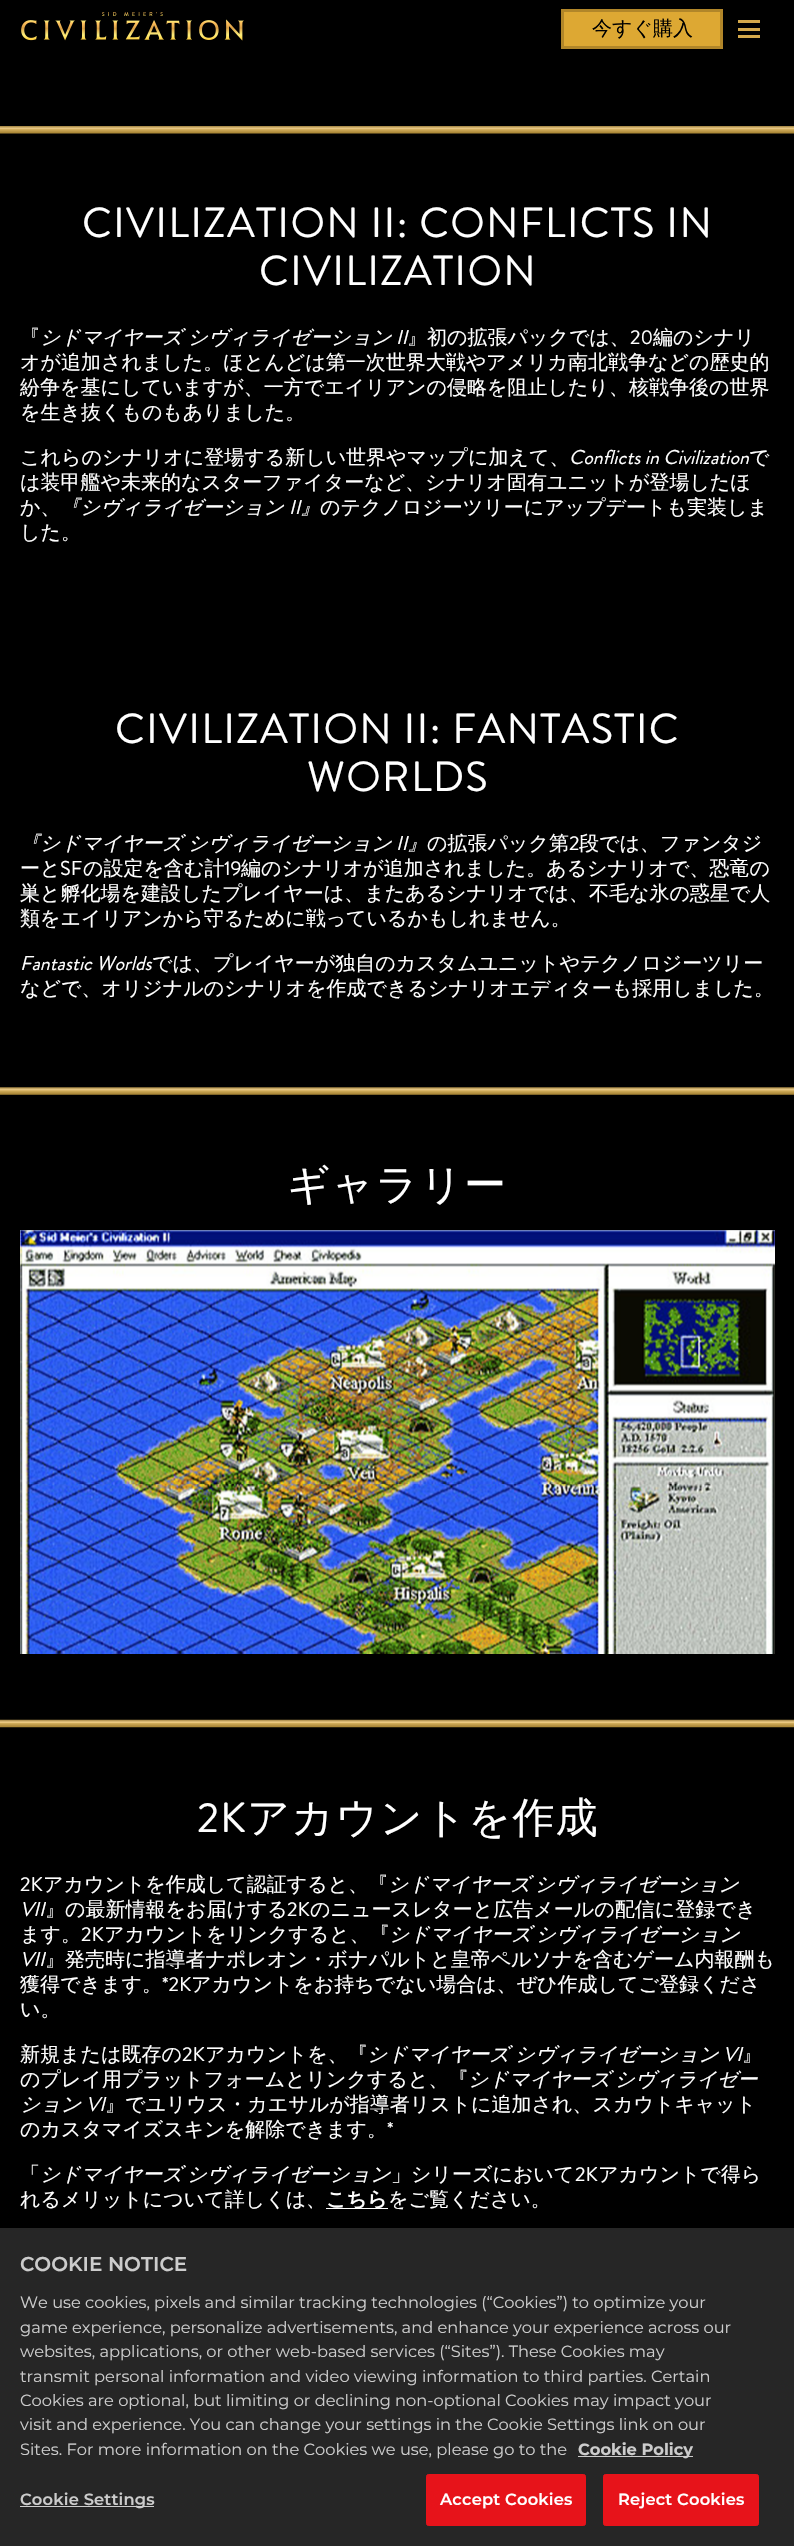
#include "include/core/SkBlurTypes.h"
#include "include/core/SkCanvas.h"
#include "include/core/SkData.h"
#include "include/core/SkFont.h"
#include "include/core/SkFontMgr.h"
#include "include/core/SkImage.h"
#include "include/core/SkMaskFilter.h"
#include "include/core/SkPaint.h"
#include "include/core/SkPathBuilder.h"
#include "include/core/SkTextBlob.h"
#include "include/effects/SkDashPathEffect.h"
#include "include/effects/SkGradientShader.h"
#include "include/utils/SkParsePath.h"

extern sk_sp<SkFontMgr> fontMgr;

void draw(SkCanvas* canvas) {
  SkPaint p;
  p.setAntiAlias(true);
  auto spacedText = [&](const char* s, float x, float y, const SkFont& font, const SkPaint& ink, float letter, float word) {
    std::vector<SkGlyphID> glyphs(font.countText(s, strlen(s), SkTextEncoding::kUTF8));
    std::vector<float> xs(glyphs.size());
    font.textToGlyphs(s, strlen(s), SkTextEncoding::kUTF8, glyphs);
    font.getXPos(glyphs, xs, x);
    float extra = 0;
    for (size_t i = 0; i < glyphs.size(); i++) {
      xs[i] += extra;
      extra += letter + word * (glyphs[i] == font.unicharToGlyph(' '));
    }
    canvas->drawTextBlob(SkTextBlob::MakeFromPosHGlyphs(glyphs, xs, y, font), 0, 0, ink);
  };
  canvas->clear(SK_ColorBLACK);
  canvas->drawImageRect(SkImages::DeferredFromEncodedData(SkData::MakeFromFileName("images/1.png")), SkRect::MakeLTRB(21, 12, 244, 41), SkSamplingOptions());
  p.setColor(SkColorSetRGB(221, 168, 51));
  canvas->drawRect(SkRect::MakeLTRB(562.5f, 10.5f, 721.5f, 47.5f), p);
  p.setStyle(SkPaint::kStroke_Style);
  p.setStrokeWidth(3);
  p.setColor(SkColorSetRGB(177, 134, 41));
  canvas->drawRect(SkRect::MakeLTRB(562.5f, 10.5f, 721.5f, 47.5f), p);
  p.setStyle(SkPaint::kFill_Style);
  p.setColor(SkColorSetRGB(213, 169, 75));
  canvas->drawRect(SkRect::MakeLTRB(738, 20, 760, 23), p);
  canvas->drawRect(SkRect::MakeLTRB(738, 28, 760, 31), p);
  canvas->drawRect(SkRect::MakeLTRB(738, 35, 760, 38), p);
  canvas->drawImageRect(SkImages::DeferredFromEncodedData(SkData::MakeFromFileName("images/2.png")), SkRect::MakeLTRB(0, 126, 794, 134), SkSamplingOptions());
  canvas->drawImageRect(SkImages::DeferredFromEncodedData(SkData::MakeFromFileName("images/3.png")), SkRect::MakeLTRB(0, 1087, 794, 1095), SkSamplingOptions());
  canvas->drawImageRect(SkImages::DeferredFromEncodedData(SkData::MakeFromFileName("images/4.png")), SkRect::MakeLTRB(20, 1230, 775, 1654), SkSamplingOptions());
  canvas->drawImageRect(SkImages::DeferredFromEncodedData(SkData::MakeFromFileName("images/5.png")), SkRect::MakeLTRB(0, 1719, 794, 1728), SkSamplingOptions());
  p.setColor(SK_ColorWHITE);
  canvas->drawRect(SkRect::MakeLTRB(326, 2208, 388, 2209), p);
  p.setColor(SkColorSetRGB(38, 38, 38));
  canvas->drawRect(SkRect::MakeLTRB(0, 2228, 794, 2546), p);
  p.setColor(SkColorSetRGB(204, 204, 204));
  canvas->drawRect(SkRect::MakeLTRB(578, 2456, 693, 2457), p);
  canvas->drawRect(SkRect::MakeLTRB(20, 2506, 154, 2507), p);
  p.setColor(SkColorSetRGB(231, 19, 26));
  canvas->drawRoundRect(SkRect::MakeLTRB(426.5f, 2474.5f, 585.5f, 2525.5f), 2, 2, p);
  p.setStyle(SkPaint::kStroke_Style);
  p.setStrokeWidth(1);
  canvas->drawRoundRect(SkRect::MakeLTRB(426.5f, 2474.5f, 585.5f, 2525.5f), 2, 2, p);
  p.setStyle(SkPaint::kFill_Style);
  canvas->drawRoundRect(SkRect::MakeLTRB(603.5f, 2474.5f, 758.5f, 2525.5f), 2, 2, p);
  p.setStyle(SkPaint::kStroke_Style);
  canvas->drawRoundRect(SkRect::MakeLTRB(603.5f, 2474.5f, 758.5f, 2525.5f), 2, 2, p);
  SkFont font1(fontMgr->matchFamilyStyle("WenQuanYi Zen Hei", SkFontStyle(500, SkFontStyle::kNormal_Width, SkFontStyle::kUpright_Slant)), 20);
  font1.setSubpixel(true);
  p.setStyle(SkPaint::kFill_Style);
  p.setColor(SK_ColorBLACK);
  canvas->drawString("今すぐ購入", 592, 35, font1, p);
  SkFont font2(fontMgr->matchFamilyStyle("Brandon Grotesque", SkFontStyle::Normal()), 42);
  font2.setSubpixel(true);
  p.setColor(SK_ColorWHITE);
  spacedText("CIVILIZATION II: CONFLICTS IN", 82, 237, font2, p, 1.25f, 0);
  spacedText("CIVILIZATION", 259, 285, font2, p, 1.25f, 0);
  canvas->drawString("『", 20, 344, font1, p);
  SkFont font3(fontMgr->matchFamilyStyle("WenQuanYi Zen Hei", SkFontStyle(500, SkFontStyle::kNormal_Width, SkFontStyle::kItalic_Slant)), 20);
  font3.setSubpixel(true);
  spacedText("シドマイヤーズ シヴィライゼーション", 40, 344, font3, p, 0, -1);
  SkFont font4(fontMgr->matchFamilyStyle("Brandon Grotesque", SkFontStyle::Italic()), 20);
  font4.setSubpixel(true);
  canvas->drawString("II", 396, 344, font4, p);
  canvas->drawString("』初の拡張パックでは、", 407, 344, font1, p);
  SkFont font5(fontMgr->matchFamilyStyle("Brandon Grotesque", SkFontStyle::Normal()), 20);
  font5.setSubpixel(true);
  canvas->drawString("20", 630, 344, font5, p);
  canvas->drawString("編のシナリ", 653, 344, font1, p);
  canvas->drawString("オが追加されました。ほとんどは第一次世界大戦やアメリカ南北戦争などの歴史的", 20, 369, font1, p);
  canvas->drawString("紛争を基にしていますが、一方でエイリアンの侵略を阻止したり、核戦争後の世界", 20, 394, font1, p);
  canvas->drawString("を生き抜くものもありました。", 20, 419, font1, p);
  canvas->drawString("これらのシナリオに登場する新しい世界やマップに加えて、", 20, 464, font1, p);
  canvas->drawString("Conflicts in Civilization", 569, 464, font4, p);
  canvas->drawString("で", 749, 464, font1, p);
  canvas->drawString("は装甲艦や未来的なスターファイターなど、シナリオ固有ユニットが登場したほ", 20, 489, font1, p);
  canvas->drawString("か、", 20, 514, font1, p);
  canvas->drawString("『シヴィライゼーション", 60, 514, font3, p);
  canvas->drawString("II", 289, 514, font4, p);
  canvas->drawString("』", 300, 514, font3, p);
  canvas->drawString("のテクノロジーツリーにアップデートも実装しま", 320, 514, font1, p);
  canvas->drawString("した。", 20, 539, font1, p);
  spacedText("CIVILIZATION II: FANTASTIC", 115, 743, font2, p, 1.25f, 0);
  spacedText("WORLDS", 307, 791, font2, p, 1.25f, 0);
  spacedText("『シドマイヤーズ シヴィライゼーション", 20, 850, font3, p, 0, -1);
  canvas->drawString("II", 396, 850, font4, p);
  canvas->drawString("』", 407, 850, font3, p);
  canvas->drawString("の拡張パック第", 427, 850, font1, p);
  canvas->drawString("2", 569, 850, font5, p);
  canvas->drawString("段では、ファンタジ", 579, 850, font1, p);
  canvas->drawString("ーと", 20, 875, font1, p);
  canvas->drawString("SF", 60, 875, font5, p);
  canvas->drawString("の設定を含む計", 83, 875, font1, p);
  canvas->drawString("19", 224, 875, font5, p);
  canvas->drawString("編のシナリオが追加されました。あるシナリオで、恐竜の", 241, 875, font1, p);
  canvas->drawString("巣と孵化場を建設したプレイヤーは、またあるシナリオでは、不毛な氷の惑星で人", 20, 900, font1, p);
  canvas->drawString("類をエイリアンから守るために戦っているかもしれません。", 20, 925, font1, p);
  canvas->drawString("Fantastic Worlds", 20, 970, font4, p);
  canvas->drawString("では、プレイヤーが独自のカスタムユニットやテクノロジーツリー", 152, 970, font1, p);
  canvas->drawString("などで、オリジナルのシナリオを作成できるシナリオエディターも採用しました。", 20, 995, font1, p);
  SkFont font6(fontMgr->matchFamilyStyle("WenQuanYi Zen Hei", SkFontStyle(500, SkFontStyle::kNormal_Width, SkFontStyle::kUpright_Slant)), 42);
  font6.setSubpixel(true);
  spacedText("ギャラリー", 287, 1199, font6, p, 1.25f, 0);
  spacedText("2K", 197, 1832, font2, p, 1.25f, 0);
  spacedText("アカウントを作成", 247, 1832, font6, p, 1.25f, 0);
  canvas->drawString("2K", 20, 1891, font5, p);
  canvas->drawString("アカウントを作成して認証すると、『", 43, 1891, font1, p);
  spacedText("シドマイヤーズ シヴィライゼーション", 388, 1891, font3, p, 0, -2);
  canvas->drawString("VII", 20, 1916, font4, p);
  canvas->drawString("』の最新情報をお届けする", 45, 1916, font1, p);
  canvas->drawString("2K", 287, 1916, font5, p);
  canvas->drawString("のニュースレターと広告メールの配信に登録でき", 310, 1916, font1, p);
  canvas->drawString("ます。", 20, 1941, font1, p);
  canvas->drawString("2K", 81, 1941, font5, p);
  canvas->drawString("アカウントをリンクすると、『", 104, 1941, font1, p);
  spacedText("シドマイヤーズ シヴィライゼーション", 389, 1941, font3, p, 0, -2);
  canvas->drawString("VII", 20, 1966, font4, p);
  canvas->drawString("』発売時に指導者ナポレオン・ボナパルトと皇帝ペルソナを含むゲーム内報酬も", 45, 1966, font1, p);
  canvas->drawString("獲得できます。", 20, 1991, font1, p);
  canvas->drawString("*2K", 162, 1991, font5, p);
  canvas->drawString("アカウントをお持ちでない場合は、ぜひ作成してご登録くださ", 191, 1991, font1, p);
  canvas->drawString("い。", 20, 2016, font1, p);
  canvas->drawString("新規または既存の", 20, 2061, font1, p);
  canvas->drawString("2K", 182, 2061, font5, p);
  canvas->drawString("アカウントを、『", 205, 2061, font1, p);
  spacedText("シドマイヤーズ シヴィライゼーション", 367, 2061, font3, p, 0, -1);
  canvas->drawString("VI", 723, 2061, font4, p);
  canvas->drawString("』", 742, 2061, font1, p);
  canvas->drawString("のプレイ用プラットフォームとリンクすると、『", 20, 2086, font1, p);
  spacedText("シドマイヤーズ シヴィライゼー", 468, 2086, font3, p, 0, -2);
  canvas->drawString("ション", 20, 2111, font3, p);
  canvas->drawString("VI", 86, 2111, font4, p);
  canvas->drawString("』でユリウス・カエサルが指導者リストに追加され、スカウトキャット", 105, 2111, font1, p);
  canvas->drawString("のカスタマイズスキンを解除できます。", 20, 2136, font1, p);
  canvas->drawString("*", 387, 2136, font5, p);
  canvas->drawString("「", 20, 2181, font1, p);
  spacedText("シドマイヤーズ シヴィライゼーション", 40, 2181, font3, p, 0, -2);
  canvas->drawString("」シリーズにおいて", 391, 2181, font1, p);
  canvas->drawString("2K", 575, 2181, font5, p);
  canvas->drawString("アカウントで得ら", 598, 2181, font1, p);
  canvas->drawString("れるメリットについて詳しくは、", 20, 2206, font1, p);
  SkFont font7(fontMgr->matchFamilyStyle("WenQuanYi Zen Hei", SkFontStyle::Bold()), 20);
  font7.setSubpixel(true);
  canvas->drawString("こちら", 326, 2206, font7, p);
  canvas->drawString("をご覧ください。", 388, 2206, font1, p);
  SkFont font8(fontMgr->matchFamilyStyle("Montserrat", SkFontStyle(600, SkFontStyle::kNormal_Width, SkFontStyle::kUpright_Slant)), 20);
  font8.setSubpixel(true);
  p.setColor(SkColorSetRGB(204, 204, 204));
  canvas->drawString("COOKIE NOTICE", 20, 2271, font8, p);
  SkFont font9(fontMgr->matchFamilyStyle("Montserrat", SkFontStyle::Normal()), 16.25f);
  font9.setSubpixel(true);
  canvas->drawString("We use cookies, pixels and similar tracking technologies (“Cookies”) to optimize your", 20, 2308, font9, p);
  canvas->drawString("game experience, personalize advertisements, and enhance your experience across our", 20, 2333, font9, p);
  canvas->drawString("websites, applications, or other web-based services (“Sites”). These Cookies may", 20, 2357, font9, p);
  canvas->drawString("transmit personal information and video viewing information to third parties. Certain", 20, 2382, font9, p);
  canvas->drawString("Cookies are optional, but limiting or declining non-optional Cookies may impact your", 20, 2406, font9, p);
  canvas->drawString("visit and experience. You can change your settings in the Cookie Settings link on our", 20, 2430, font9, p);
  canvas->drawString("Sites. For more information on the Cookies we use, please go to the", 20, 2455, font9, p);
  SkFont font10(fontMgr->matchFamilyStyle("Montserrat", SkFontStyle::Bold()), 16.25f);
  font10.setSubpixel(true);
  canvas->drawString("Cookie Policy", 578, 2455, font10, p);
  SkFont font11(fontMgr->matchFamilyStyle("Montserrat", SkFontStyle(600, SkFontStyle::kNormal_Width, SkFontStyle::kUpright_Slant)), 16.25f);
  font11.setSubpixel(true);
  spacedText("Cookie Settings", 20, 2505, font11, p, 0.2f, 0);
  p.setColor(SK_ColorWHITE);
  spacedText("Accept Cookies", 440, 2505, font11, p, 0.2f, 0);
  spacedText("Reject Cookies", 618, 2505, font11, p, 0.2f, 0);
}
